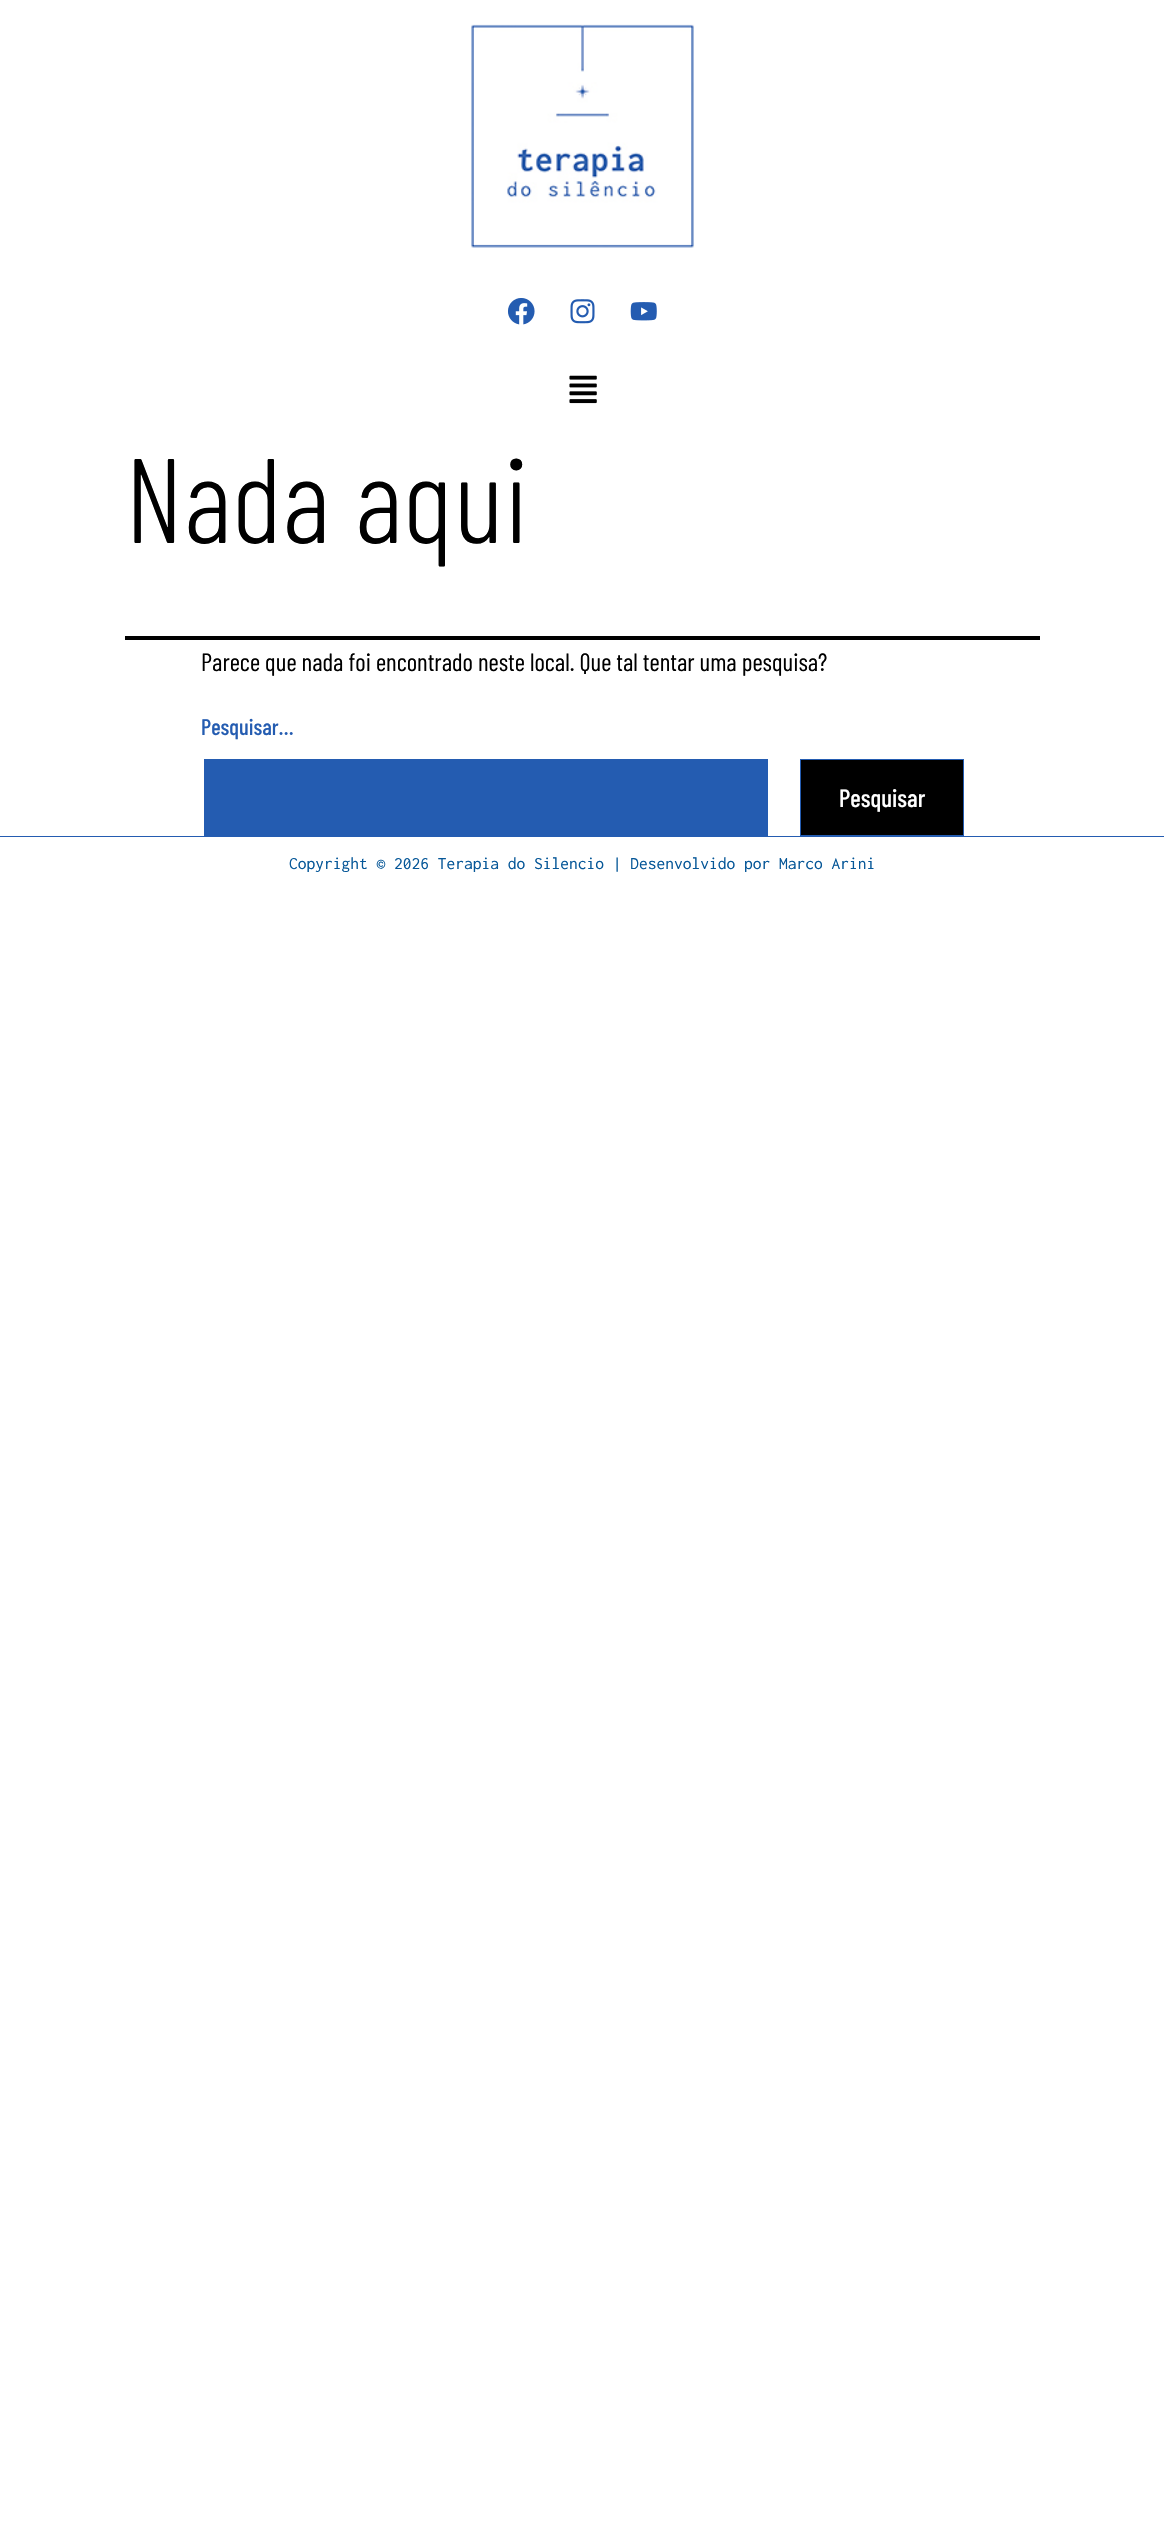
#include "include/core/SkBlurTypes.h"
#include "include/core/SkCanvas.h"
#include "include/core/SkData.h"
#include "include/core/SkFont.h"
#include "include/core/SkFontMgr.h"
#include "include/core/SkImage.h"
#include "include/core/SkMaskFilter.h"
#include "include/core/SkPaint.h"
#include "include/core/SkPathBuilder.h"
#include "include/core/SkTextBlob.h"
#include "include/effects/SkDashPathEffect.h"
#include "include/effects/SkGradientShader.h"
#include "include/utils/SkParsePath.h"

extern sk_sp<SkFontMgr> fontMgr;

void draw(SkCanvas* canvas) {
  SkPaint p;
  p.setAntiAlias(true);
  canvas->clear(SK_ColorWHITE);
  canvas->drawImageRect(SkImages::DeferredFromEncodedData(SkData::MakeFromFileName("images/1.png")), SkRect::MakeLTRB(471, 24, 695, 248), SkSamplingOptions());
  canvas->drawImageRect(SkImages::DeferredFromEncodedData(SkData::MakeFromFileName("images/2.png")), SkRect::MakeLTRB(508, 298, 535, 325), SkSamplingOptions());
  canvas->drawImageRect(SkImages::DeferredFromEncodedData(SkData::MakeFromFileName("images/3.png")), SkRect::MakeLTRB(570, 299, 595, 324), SkSamplingOptions());
  canvas->drawImageRect(SkImages::DeferredFromEncodedData(SkData::MakeFromFileName("images/4.png")), SkRect::MakeLTRB(630, 302, 657, 321), SkSamplingOptions());
  canvas->drawImageRect(SkImages::DeferredFromEncodedData(SkData::MakeFromFileName("images/5.png")), SkRect::MakeLTRB(569, 375, 597, 404), SkSamplingOptions());
  p.setColor(SK_ColorBLACK);
  canvas->drawRect(SkRect::MakeLTRB(125, 636, 1040, 640), p);
  p.setColor(SkColorSetRGB(36, 92, 177));
  canvas->drawRect(SkRect::MakeLTRB(204, 759, 768, 836), p);
  p.setColor(SK_ColorBLACK);
  canvas->drawRect(SkRect::MakeLTRB(800.5f, 759.5f, 963.5f, 835.5f), p);
  p.setStyle(SkPaint::kStroke_Style);
  p.setStrokeWidth(1);
  p.setColor(SkColorSetRGB(36, 92, 177));
  canvas->drawRect(SkRect::MakeLTRB(800.5f, 759.5f, 963.5f, 835.5f), p);
  p.setStyle(SkPaint::kFill_Style);
  canvas->drawRect(SkRect::MakeLTRB(0, 836, 1164, 837), p);
  SkFont font1(fontMgr->matchFamilyStyle("Barlow Condensed", SkFontStyle(300, SkFontStyle::kNormal_Width, SkFontStyle::kUpright_Slant)), 120);
  font1.setSubpixel(true);
  p.setColor(SK_ColorBLACK);
  canvas->drawString("Nada aqui", 125, 543, font1, p);
  SkFont font2(fontMgr->matchFamilyStyle("Barlow Condensed", SkFontStyle::Normal()), 25);
  font2.setSubpixel(true);
  canvas->drawString("Parece que nada foi encontrado neste local. Que tal tentar uma pesquisa?", 201, 671, font2, p);
  SkFont font3(fontMgr->matchFamilyStyle("Barlow Condensed", SkFontStyle(500, SkFontStyle::kNormal_Width, SkFontStyle::kUpright_Slant)), 22.5f);
  font3.setSubpixel(true);
  p.setColor(SkColorSetRGB(36, 92, 177));
  canvas->drawString("Pesquisar…", 201, 735, font3, p);
  SkFont font4(fontMgr->matchFamilyStyle("Barlow Condensed", SkFontStyle(500, SkFontStyle::kNormal_Width, SkFontStyle::kUpright_Slant)), 25);
  font4.setSubpixel(true);
  p.setColor(SK_ColorWHITE);
  canvas->drawString("Pesquisar", 839, 807, font4, p);
  SkFont font5(fontMgr->matchFamilyStyle("Inconsolata", SkFontStyle::Normal()), 17.5f);
  font5.setSubpixel(true);
  p.setColor(SkColorSetRGB(6, 87, 152));
  canvas->drawString("Copyright © 2026 Terapia do Silencio | Desenvolvido por Marco Arini", 289, 869, font5, p);
}
